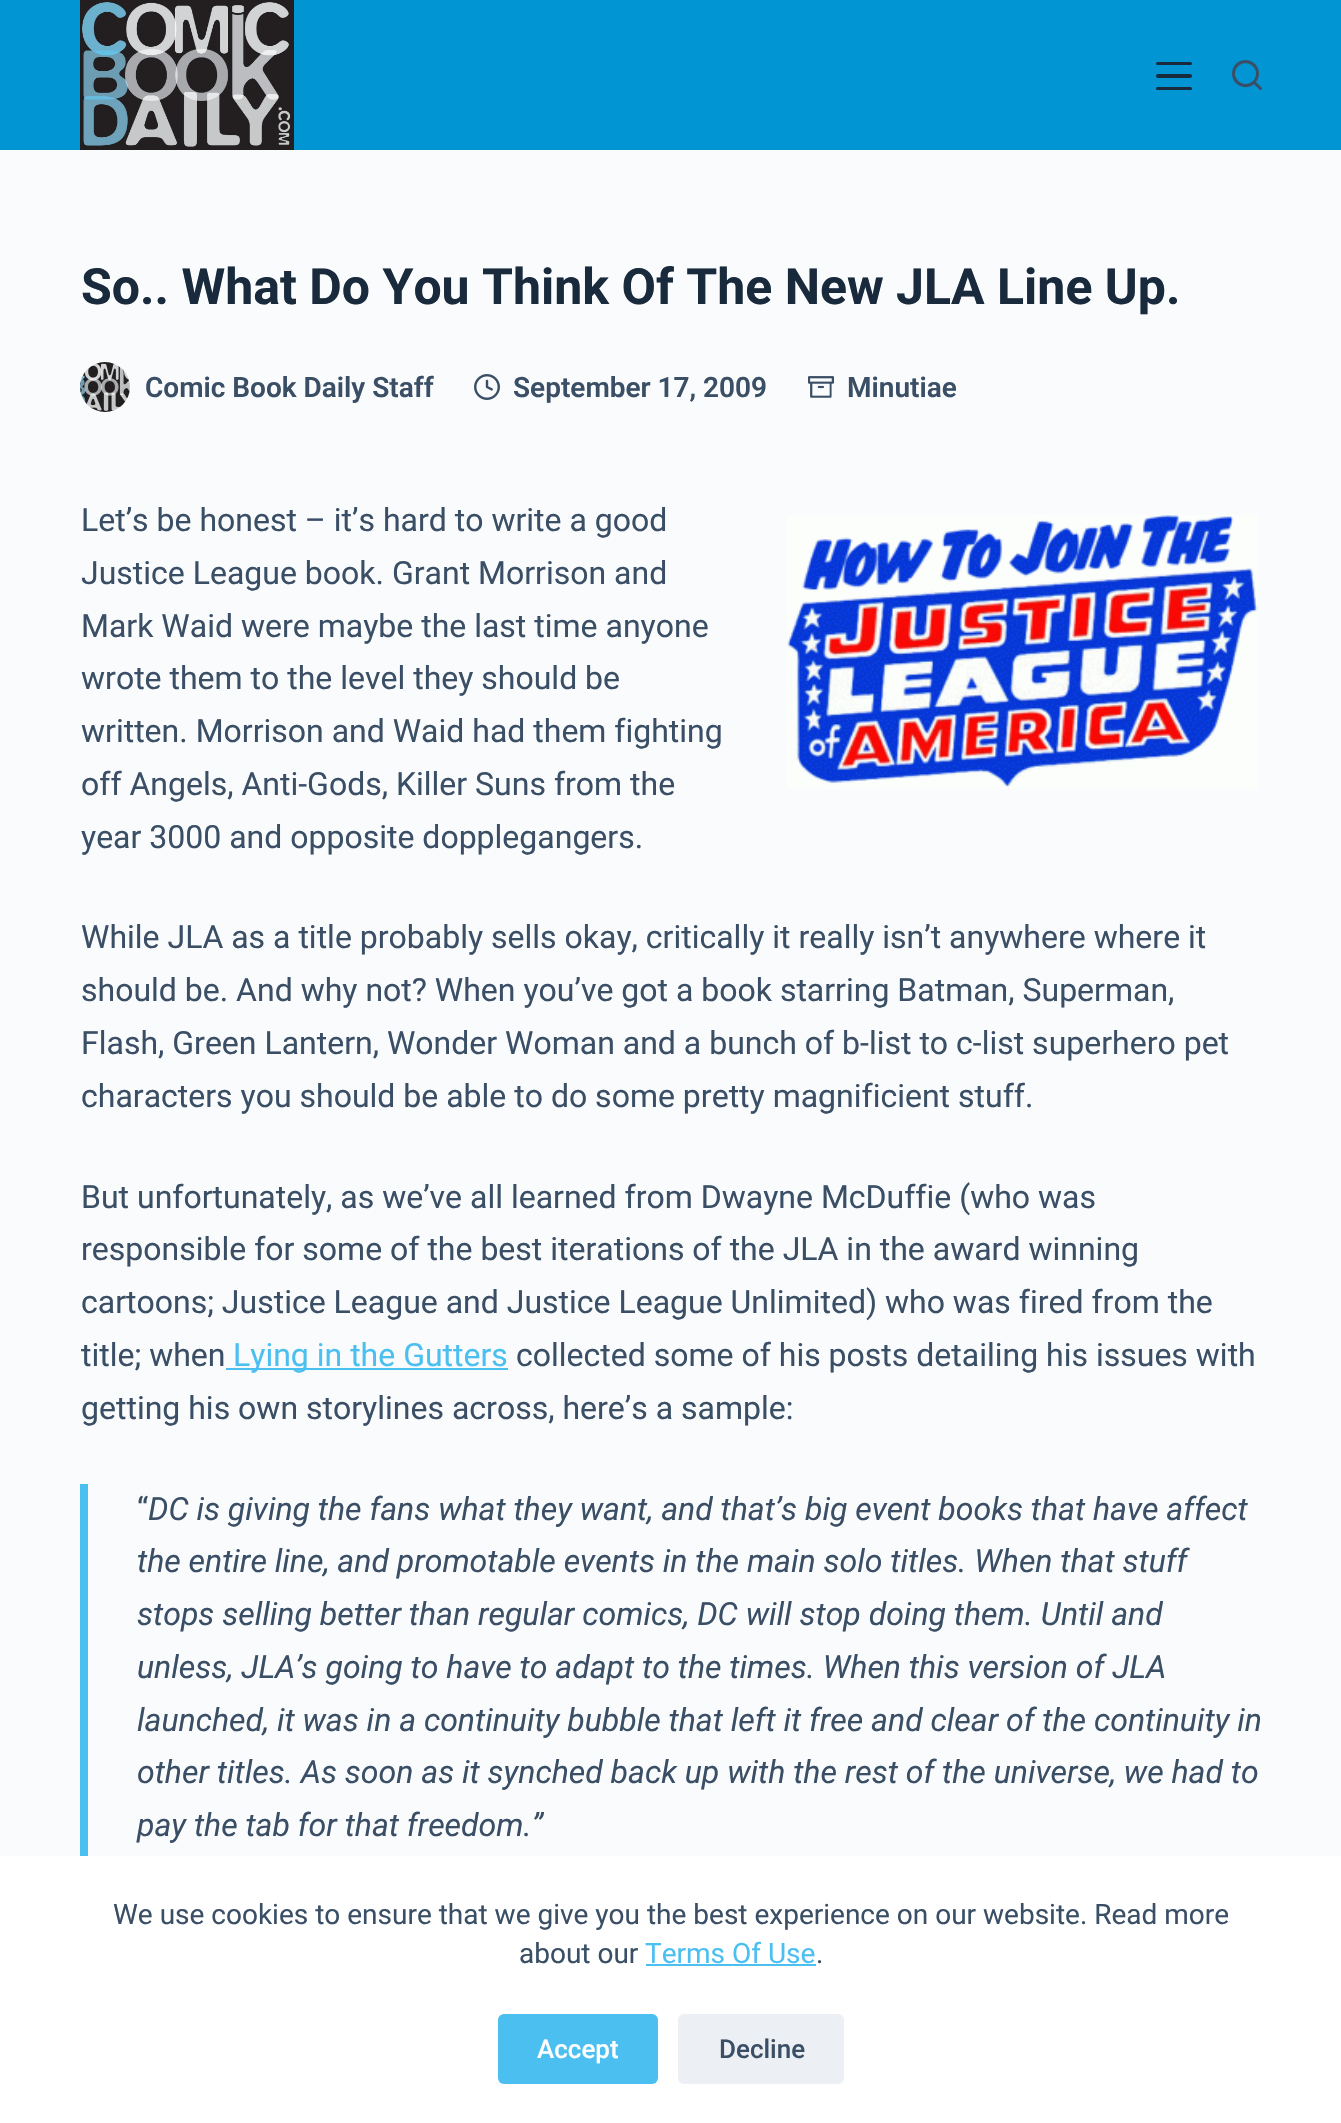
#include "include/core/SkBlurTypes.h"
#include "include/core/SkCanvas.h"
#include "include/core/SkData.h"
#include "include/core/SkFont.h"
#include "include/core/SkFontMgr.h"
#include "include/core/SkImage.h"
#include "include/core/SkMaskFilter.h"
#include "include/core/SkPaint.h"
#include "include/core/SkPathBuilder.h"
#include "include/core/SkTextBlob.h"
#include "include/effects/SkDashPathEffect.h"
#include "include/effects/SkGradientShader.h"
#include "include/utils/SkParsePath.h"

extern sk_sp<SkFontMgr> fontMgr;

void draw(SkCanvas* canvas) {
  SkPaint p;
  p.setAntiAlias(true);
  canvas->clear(SkColorSetRGB(250, 251, 252));
  p.setColor(SkColorSetRGB(1, 149, 212));
  canvas->drawRect(SkRect::MakeLTRB(0, 0, 1341, 150), p);
  canvas->drawImageRect(SkImages::DeferredFromEncodedData(SkData::MakeFromFileName("images/1.png")), SkRect::MakeLTRB(80, 0, 294, 150), SkSamplingOptions());
  p.setColor(SkColorSetRGB(25, 42, 61));
  canvas->drawRoundRect(SkRect::MakeLTRB(1156, 62, 1192, 65), 1.5f, 1.5f, p);
  canvas->drawRoundRect(SkRect::MakeLTRB(1156, 74, 1192, 78), 2, 2, p);
  canvas->drawRoundRect(SkRect::MakeLTRB(1156, 87, 1192, 90), 1.5f, 1.5f, p);
  canvas->drawImageRect(SkImages::DeferredFromEncodedData(SkData::MakeFromFileName("images/2.png")), SkRect::MakeLTRB(1232, 60, 1262, 90), SkSamplingOptions());
  canvas->drawImageRect(SkImages::DeferredFromEncodedData(SkData::MakeFromFileName("images/3.png")), SkRect::MakeLTRB(80, 362, 130, 412), SkSamplingOptions());
  canvas->drawImageRect(SkImages::DeferredFromEncodedData(SkData::MakeFromFileName("images/4.png")), SkRect::MakeLTRB(474, 374, 500, 400), SkSamplingOptions());
  canvas->drawImageRect(SkImages::DeferredFromEncodedData(SkData::MakeFromFileName("images/5.png")), SkRect::MakeLTRB(808, 376, 834, 398), SkSamplingOptions());
  canvas->drawImageRect(SkImages::DeferredFromEncodedData(SkData::MakeFromFileName("images/6.png")), SkRect::MakeLTRB(787, 515, 1258, 789), SkSamplingOptions());
  p.setColor(SkColorSetRGB(76, 191, 241));
  canvas->drawRect(SkRect::MakeLTRB(226, 1368, 508, 1370), p);
  canvas->drawRect(SkRect::MakeLTRB(80, 1484, 88, 1856), p);
  p.setColor(SK_ColorWHITE);
  canvas->drawRect(SkRect::MakeLTRB(0, 1856, 1341, 2123), p);
  p.setColor(SkColorSetRGB(76, 191, 241));
  canvas->drawRect(SkRect::MakeLTRB(646, 1964, 816, 1966), p);
  canvas->drawRoundRect(SkRect::MakeLTRB(498, 2014, 658, 2084), 6, 6, p);
  p.setColor(SkColorSetRGB(236, 239, 243));
  canvas->drawRoundRect(SkRect::MakeLTRB(678, 2014, 844, 2084), 6, 6, p);
  SkFont font1(fontMgr->matchFamilyStyle("Roboto", SkFontStyle::Bold()), 50);
  font1.setSubpixel(true);
  p.setColor(SkColorSetRGB(25, 42, 61));
  canvas->drawString("So.. What Do You Think Of The New JLA Line Up.", 81, 304, font1, p);
  SkFont font2(fontMgr->matchFamilyStyle("Roboto", SkFontStyle(600, SkFontStyle::kNormal_Width, SkFontStyle::kUpright_Slant)), 28);
  font2.setSubpixel(true);
  p.setColor(SkColorSetRGB(58, 79, 102));
  canvas->drawString("Comic Book Daily Staff", 145, 397, font2, p);
  canvas->drawString("September 17, 2009", 513, 397, font2, p);
  canvas->drawString("Minutiae", 847, 397, font2, p);
  SkFont font3(fontMgr->matchFamilyStyle("Roboto", SkFontStyle::Normal()), 32);
  font3.setSubpixel(true);
  canvas->drawString("Let’s be honest – it’s hard to write a good", 81, 531, font3, p);
  canvas->drawString("Justice League book. Grant Morrison and", 81, 584, font3, p);
  canvas->drawString("Mark Waid were maybe the last time anyone", 81, 637, font3, p);
  canvas->drawString("wrote them to the level they should be", 81, 689, font3, p);
  canvas->drawString("written. Morrison and Waid had them fighting", 81, 742, font3, p);
  canvas->drawString("off Angels, Anti-Gods, Killer Suns from the", 81, 795, font3, p);
  canvas->drawString("year 3000 and opposite dopplegangers.", 81, 848, font3, p);
  canvas->drawString("While JLA as a title probably sells okay, critically it really isn’t anywhere where it", 81, 948, font3, p);
  canvas->drawString("should be. And why not? When you’ve got a book starring Batman, Superman,", 81, 1001, font3, p);
  canvas->drawString("Flash, Green Lantern, Wonder Woman and a bunch of b-list to c-list superhero pet", 81, 1054, font3, p);
  canvas->drawString("characters you should be able to do some pretty magnificient stuff.", 81, 1107, font3, p);
  canvas->drawString("But unfortunately, as we’ve all learned from Dwayne McDuffie (who was", 81, 1208, font3, p);
  canvas->drawString("responsible for some of the best iterations of the JLA in the award winning", 81, 1260, font3, p);
  canvas->drawString("cartoons; Justice League and Justice League Unlimited) who was fired from the", 81, 1313, font3, p);
  canvas->drawString("title; when", 81, 1366, font3, p);
  p.setColor(SkColorSetRGB(76, 191, 241));
  canvas->drawString("Lying in the Gutters", 233, 1366, font3, p);
  p.setColor(SkColorSetRGB(58, 79, 102));
  canvas->drawString("collected some of his posts detailing his issues with", 516, 1366, font3, p);
  canvas->drawString("getting his own storylines across, here’s a sample:", 81, 1419, font3, p);
  canvas->drawString("“", 137, 1520, font3, p);
  SkFont font4(fontMgr->matchFamilyStyle("Roboto", SkFontStyle::Italic()), 32);
  font4.setSubpixel(true);
  canvas->drawString("DC is giving the fans what they want, and that’s big event books that have affect", 148, 1520, font4, p);
  canvas->drawString("the entire line, and promotable events in the main solo titles. When that stuff", 137, 1572, font4, p);
  canvas->drawString("stops selling better than regular comics, DC will stop doing them. Until and", 137, 1625, font4, p);
  canvas->drawString("unless, JLA’s going to have to adapt to the times. When this version of JLA", 137, 1678, font4, p);
  canvas->drawString("launched, it was in a continuity bubble that left it free and clear of the continuity in", 137, 1731, font4, p);
  canvas->drawString("other titles. As soon as it synched back up with the rest of the universe, we had to", 137, 1783, font4, p);
  canvas->drawString("pay the tab for that freedom.”", 137, 1836, font4, p);
  SkFont font5(fontMgr->matchFamilyStyle("Roboto", SkFontStyle::Normal()), 28);
  font5.setSubpixel(true);
  canvas->drawString("We use cookies to ensure that we give you the best experience on our website. Read more", 113, 1924, font5, p);
  canvas->drawString("about our", 519, 1963, font5, p);
  p.setColor(SkColorSetRGB(76, 191, 241));
  canvas->drawString("Terms Of Use", 645, 1963, font5, p);
  p.setColor(SkColorSetRGB(58, 79, 102));
  canvas->drawString(".", 816, 1963, font5, p);
  SkFont font6(fontMgr->matchFamilyStyle("Roboto", SkFontStyle(500, SkFontStyle::kNormal_Width, SkFontStyle::kUpright_Slant)), 26);
  font6.setSubpixel(true);
  p.setColor(SK_ColorWHITE);
  canvas->drawString("Accept", 537, 2058, font6, p);
  p.setColor(SkColorSetRGB(58, 79, 102));
  canvas->drawString("Decline", 719, 2058, font6, p);
}
